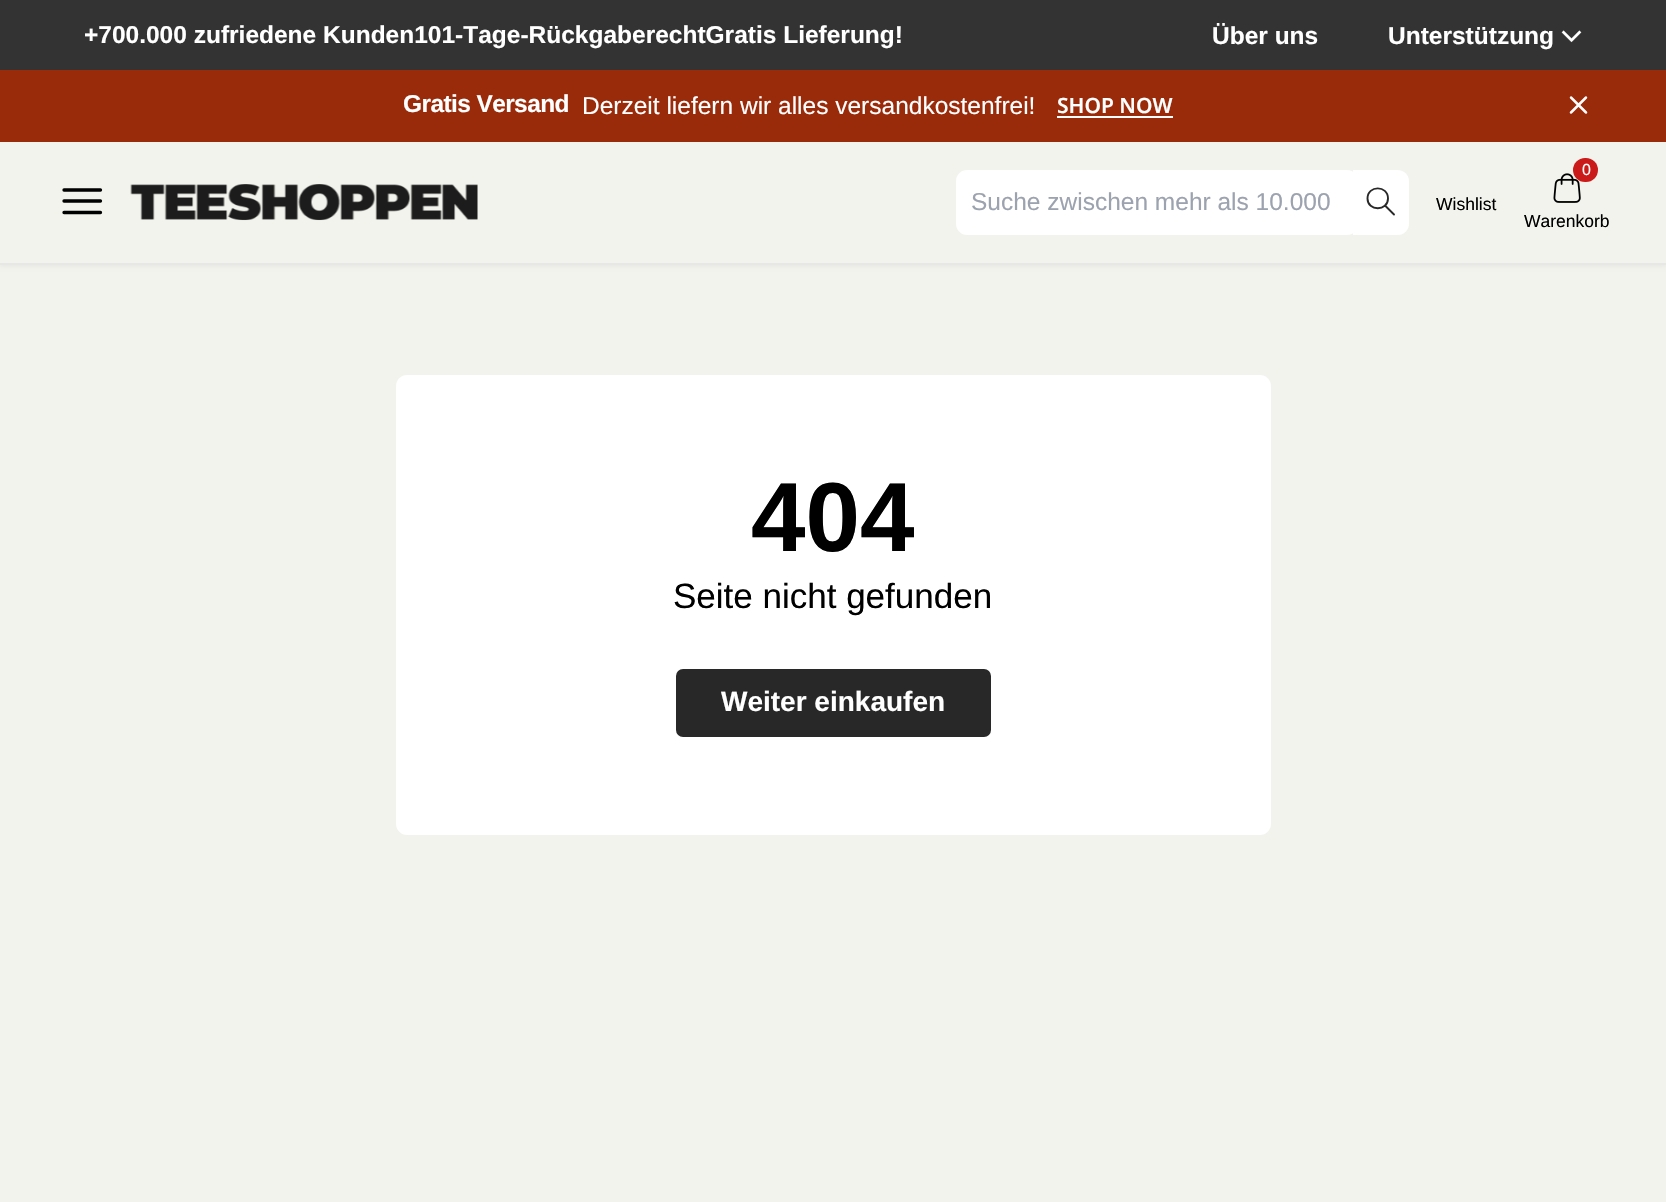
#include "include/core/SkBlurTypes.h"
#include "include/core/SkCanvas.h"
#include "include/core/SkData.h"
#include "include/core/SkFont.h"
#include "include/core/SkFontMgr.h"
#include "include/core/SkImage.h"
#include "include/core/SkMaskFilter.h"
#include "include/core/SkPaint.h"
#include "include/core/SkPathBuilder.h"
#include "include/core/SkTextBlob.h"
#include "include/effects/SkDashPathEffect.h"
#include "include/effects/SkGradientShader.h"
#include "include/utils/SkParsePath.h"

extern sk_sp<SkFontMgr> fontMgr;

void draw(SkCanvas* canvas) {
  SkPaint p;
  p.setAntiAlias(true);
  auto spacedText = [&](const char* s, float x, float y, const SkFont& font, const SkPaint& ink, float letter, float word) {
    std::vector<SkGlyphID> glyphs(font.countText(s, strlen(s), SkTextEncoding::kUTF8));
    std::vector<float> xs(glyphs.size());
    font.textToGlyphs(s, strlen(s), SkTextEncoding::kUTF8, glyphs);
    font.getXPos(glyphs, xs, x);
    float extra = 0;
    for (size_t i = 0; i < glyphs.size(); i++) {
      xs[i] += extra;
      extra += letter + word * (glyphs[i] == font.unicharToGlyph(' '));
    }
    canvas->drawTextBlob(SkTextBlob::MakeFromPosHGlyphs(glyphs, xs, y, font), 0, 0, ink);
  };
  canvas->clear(SkColorSetRGB(243, 243, 237));
  p.setColor(SkColorSetARGB(13, 0, 0, 0));
  p.setMaskFilter(SkMaskFilter::MakeBlur(kNormal_SkBlurStyle, 2));
  canvas->drawRect(SkRect::MakeLTRB(0, 2, 1666, 266), p);
  p.setMaskFilter(nullptr);
  p.setColor(SkColorSetRGB(231, 231, 231));
  canvas->drawRect(SkRect::MakeLTRB(0, 263, 1666, 265), p);
  p.setColor(SkColorSetRGB(51, 51, 51));
  canvas->drawRect(SkRect::MakeLTRB(0, 0, 1666, 70), p);
  canvas->drawImageRect(SkImages::DeferredFromEncodedData(SkData::MakeFromFileName("images/1.png")), SkRect::MakeLTRB(1561, 30, 1582, 43), SkSamplingOptions());
  p.setColor(SkColorSetRGB(153, 42, 10));
  canvas->drawRect(SkRect::MakeLTRB(0, 70, 1666, 142), p);
  p.setColor(SK_ColorWHITE);
  canvas->drawRect(SkRect::MakeLTRB(1057, 116, 1173, 118), p);
  canvas->drawImageRect(SkImages::DeferredFromEncodedData(SkData::MakeFromFileName("images/2.png")), SkRect::MakeLTRB(1569, 96, 1588, 114), SkSamplingOptions());
  p.setColor(SkColorSetRGB(243, 243, 237));
  canvas->drawRect(SkRect::MakeLTRB(0, 142, 1666, 263), p);
  p.setStyle(SkPaint::kStroke_Style);
  p.setStrokeWidth(3.3f);
  p.setStrokeCap(SkPaint::kRound_Cap);
  p.setStrokeJoin(SkPaint::kRound_Join);
  p.setColor(SK_ColorBLACK);
  canvas->drawPath(SkPathBuilder().moveTo(64, 190).lineTo(100.5f, 190).moveTo(64, 201).lineTo(100.5f, 201).moveTo(64, 212.5f).lineTo(100.5f, 212.5f).detach(), p);
  canvas->drawImageRect(SkImages::DeferredFromEncodedData(SkData::MakeFromFileName("images/3.png")), SkRect::MakeLTRB(130, 184, 478, 221), SkSamplingOptions());
  p.setStyle(SkPaint::kFill_Style);
  p.setColor(SK_ColorWHITE);
  canvas->drawRoundRect(SkRect::MakeLTRB(957, 171, 1357, 234), 10, 10, p);
  p.setStyle(SkPaint::kStroke_Style);
  p.setStrokeWidth(2);
  p.setStrokeCap(SkPaint::kButt_Cap);
  p.setStrokeJoin(SkPaint::kMiter_Join);
  canvas->drawRoundRect(SkRect::MakeLTRB(957, 171, 1357, 234), 10, 10, p);
  p.setStyle(SkPaint::kFill_Style);
  canvas->drawPath(SkPathBuilder().moveTo(1353, 170).lineTo(1398, 170).cubicTo(1404, 170, 1409, 175, 1409, 181).lineTo(1409, 224).cubicTo(1409, 230, 1404, 235, 1398, 235).lineTo(1353, 235).close().detach(), p);
  p.setStyle(SkPaint::kStroke_Style);
  p.setStrokeWidth(1.9f);
  p.setStrokeCap(SkPaint::kRound_Cap);
  p.setStrokeJoin(SkPaint::kRound_Join);
  p.setColor(SkColorSetRGB(40, 40, 40));
  canvas->drawPath(SkPathBuilder().moveTo(1394, 214.5f).lineTo(1385, 205.5f).moveTo(1388, 198.5f).cubicTo(1388, 211.5f, 1367.5f, 211.5f, 1367.5f, 198.5f).cubicTo(1367.5f, 185, 1388, 185, 1388, 198.5f).close().detach(), p);
  p.setStyle(SkPaint::kFill_Style);
  p.setColor(SkColorSetRGB(203, 26, 26));
  canvas->drawRoundRect(SkRect::MakeLTRB(1573, 158, 1598, 182), 12, 12, p);
  canvas->drawImageRect(SkImages::DeferredFromEncodedData(SkData::MakeFromFileName("images/4.png")), SkRect::MakeLTRB(1553, 173, 1581, 203), SkSamplingOptions());
  p.setColor(SK_ColorWHITE);
  canvas->drawRoundRect(SkRect::MakeLTRB(396, 375, 1271, 835), 11, 11, p);
  p.setColor(SkColorSetRGB(40, 40, 40));
  canvas->drawRoundRect(SkRect::MakeLTRB(677, 670, 990, 736), 6, 6, p);
  p.setStyle(SkPaint::kStroke_Style);
  p.setStrokeWidth(2);
  p.setStrokeCap(SkPaint::kButt_Cap);
  p.setStrokeJoin(SkPaint::kMiter_Join);
  canvas->drawRoundRect(SkRect::MakeLTRB(677, 670, 990, 736), 6, 6, p);
  SkFont font1(fontMgr->matchFamilyStyle("Liberation Sans", SkFontStyle::Bold()), 24.5f);
  font1.setSubpixel(true);
  p.setStyle(SkPaint::kFill_Style);
  p.setColor(SK_ColorWHITE);
  canvas->drawString("+700.000 zufriedene Kunden101-Tage-RückgaberechtGratis Lieferung!", 84, 43, font1, p);
  canvas->drawString("Über uns", 1212, 44, font1, p);
  canvas->drawString("Unterstützung", 1388, 44, font1, p);
  spacedText("Gratis Versand", 403, 112, font1, p, -0.6f, 0);
  SkFont font2(fontMgr->matchFamilyStyle("Liberation Sans", SkFontStyle::Normal()), 24.5f);
  font2.setSubpixel(true);
  canvas->drawString("Derzeit liefern wir alles versandkostenfrei!", 582, 114, font2, p);
  SkFont font3(fontMgr->matchFamilyStyle("Noto Sans", SkFontStyle(600, SkFontStyle::kNormal_Width, SkFontStyle::kUpright_Slant)), 21);
  font3.setSubpixel(true);
  canvas->drawString("SHOP NOW", 1057, 113, font3, p);
  p.setColor(SkColorSetRGB(156, 163, 175));
  canvas->drawString("Suche zwischen mehr als 10.000", 971, 210, font2, p);
  SkFont font4(fontMgr->matchFamilyStyle("Liberation Sans", SkFontStyle::Normal()), 17.5f);
  font4.setSubpixel(true);
  p.setColor(SK_ColorBLACK);
  canvas->drawString("Wishlist", 1436, 210, font4, p);
  SkFont font5(fontMgr->matchFamilyStyle("Liberation Sans", SkFontStyle::Normal()), 16);
  font5.setSubpixel(true);
  p.setColor(SK_ColorWHITE);
  canvas->drawString("0", 1582, 175, font5, p);
  p.setColor(SK_ColorBLACK);
  canvas->drawString("Warenkorb", 1524, 227, font4, p);
  SkFont font6(fontMgr->matchFamilyStyle("Liberation Sans", SkFontStyle::Bold()), 98);
  font6.setSubpixel(true);
  canvas->drawString("404", 751, 551, font6, p);
  SkFont font7(fontMgr->matchFamilyStyle("Liberation Sans", SkFontStyle::Normal()), 35);
  font7.setSubpixel(true);
  canvas->drawString("Seite nicht gefunden", 673, 608, font7, p);
  SkFont font8(fontMgr->matchFamilyStyle("Liberation Sans", SkFontStyle::Bold()), 28);
  font8.setSubpixel(true);
  p.setColor(SK_ColorWHITE);
  canvas->drawString("Weiter einkaufen", 721, 711, font8, p);
}
